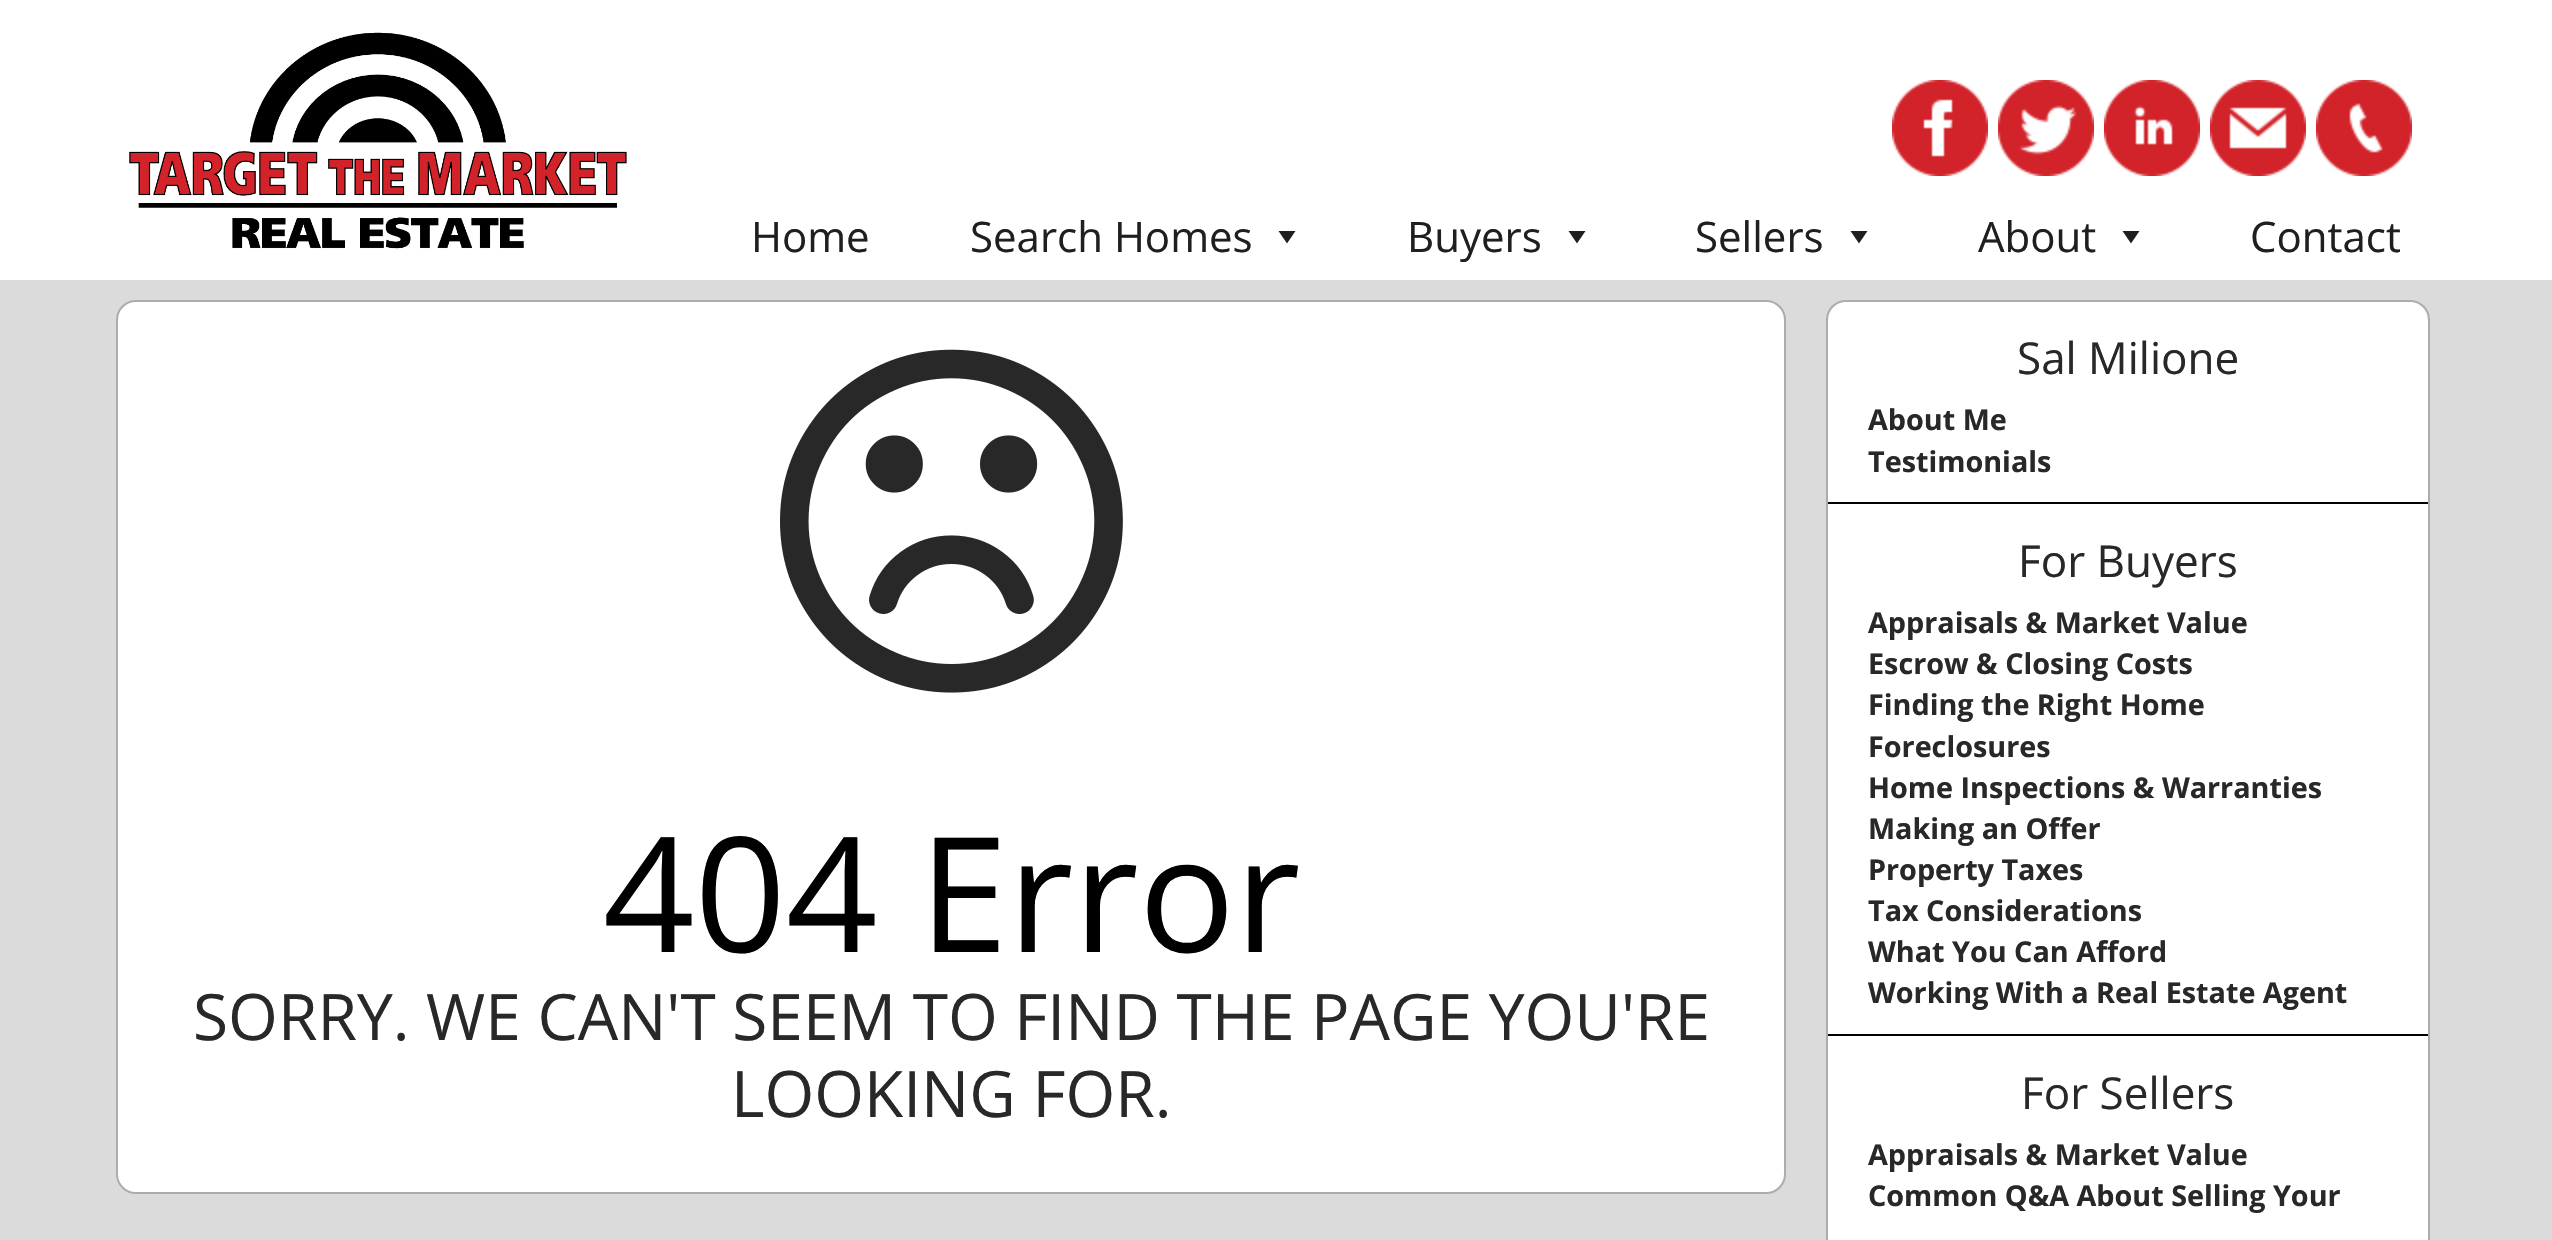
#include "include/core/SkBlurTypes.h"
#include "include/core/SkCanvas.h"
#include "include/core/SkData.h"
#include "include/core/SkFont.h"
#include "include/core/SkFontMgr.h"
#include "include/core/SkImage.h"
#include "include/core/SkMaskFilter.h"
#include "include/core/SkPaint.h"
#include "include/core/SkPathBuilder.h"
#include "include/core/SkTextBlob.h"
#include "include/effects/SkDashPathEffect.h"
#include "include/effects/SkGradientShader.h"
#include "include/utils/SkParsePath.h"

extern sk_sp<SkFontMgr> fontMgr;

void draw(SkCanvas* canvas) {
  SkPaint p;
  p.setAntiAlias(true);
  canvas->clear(SkColorSetRGB(219, 219, 219));
  p.setColor(SK_ColorWHITE);
  canvas->drawRect(SkRect::MakeLTRB(0, 0, 2552, 280), p);
  canvas->drawImageRect(SkImages::DeferredFromEncodedData(SkData::MakeFromFileName("images/1.png")), SkRect::MakeLTRB(129, 32, 627, 249), SkSamplingOptions());
  canvas->drawImageRect(SkImages::DeferredFromEncodedData(SkData::MakeFromFileName("images/2.png")), SkRect::MakeLTRB(1892, 80, 1988, 176), SkSamplingOptions());
  canvas->drawImageRect(SkImages::DeferredFromEncodedData(SkData::MakeFromFileName("images/3.png")), SkRect::MakeLTRB(1998, 80, 2094, 176), SkSamplingOptions());
  canvas->drawImageRect(SkImages::DeferredFromEncodedData(SkData::MakeFromFileName("images/4.png")), SkRect::MakeLTRB(2104, 80, 2200, 176), SkSamplingOptions());
  canvas->drawImageRect(SkImages::DeferredFromEncodedData(SkData::MakeFromFileName("images/5.png")), SkRect::MakeLTRB(2210, 80, 2306, 176), SkSamplingOptions());
  canvas->drawImageRect(SkImages::DeferredFromEncodedData(SkData::MakeFromFileName("images/6.png")), SkRect::MakeLTRB(2316, 80, 2412, 176), SkSamplingOptions());
  p.setColor(SkColorSetRGB(31, 31, 31));
  canvas->drawPath(SkPathBuilder().moveTo(1295.5f, 231).lineTo(1287, 243.5f).lineTo(1278.5f, 231).close().detach(), p);
  canvas->drawPath(SkPathBuilder().moveTo(1585.5f, 231).lineTo(1577, 243.5f).lineTo(1568.5f, 231).close().detach(), p);
  canvas->drawPath(SkPathBuilder().moveTo(1867.5f, 231).lineTo(1859, 243.5f).lineTo(1850.5f, 231).close().detach(), p);
  canvas->drawPath(SkPathBuilder().moveTo(2139.5f, 231).lineTo(2131, 243.5f).lineTo(2122.5f, 231).close().detach(), p);
  p.setColor(SK_ColorWHITE);
  canvas->drawRoundRect(SkRect::MakeLTRB(117, 301, 1785, 1193), 19, 19, p);
  p.setStyle(SkPaint::kStroke_Style);
  p.setStrokeWidth(2);
  p.setColor(SkColorSetRGB(172, 172, 172));
  canvas->drawRoundRect(SkRect::MakeLTRB(117, 301, 1785, 1193), 19, 19, p);
  canvas->drawImageRect(SkImages::DeferredFromEncodedData(SkData::MakeFromFileName("images/7.png")), SkRect::MakeLTRB(780, 349, 1123, 693), SkSamplingOptions());
  p.setStyle(SkPaint::kFill_Style);
  p.setColor(SK_ColorWHITE);
  canvas->drawRoundRect(SkRect::MakeLTRB(1827, 301, 2429, 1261), 19, 19, p);
  p.setStyle(SkPaint::kStroke_Style);
  p.setColor(SkColorSetRGB(172, 172, 172));
  canvas->drawRoundRect(SkRect::MakeLTRB(1827, 301, 2429, 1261), 19, 19, p);
  p.setStyle(SkPaint::kFill_Style);
  p.setColor(SK_ColorBLACK);
  canvas->drawRect(SkRect::MakeLTRB(1828, 502, 2428, 504), p);
  canvas->drawRect(SkRect::MakeLTRB(1828, 1034, 2428, 1036), p);
  SkFont font1(fontMgr->matchFamilyStyle("Open Sans", SkFontStyle::Normal()), 42);
  font1.setSubpixel(true);
  p.setColor(SkColorSetRGB(31, 31, 31));
  canvas->drawString("Home", 751, 252, font1, p);
  canvas->drawString("Search Homes", 970, 252, font1, p);
  canvas->drawString("Buyers", 1407, 252, font1, p);
  canvas->drawString("Sellers", 1695, 252, font1, p);
  canvas->drawString("About", 1978, 252, font1, p);
  canvas->drawString("Contact", 2250, 252, font1, p);
  SkFont font2(fontMgr->matchFamilyStyle("Open Sans", SkFontStyle::Normal()), 160);
  font2.setSubpixel(true);
  p.setColor(SK_ColorBLACK);
  canvas->drawString("404 Error", 603, 952, font2, p);
  SkFont font3(fontMgr->matchFamilyStyle("Open Sans", SkFontStyle::Normal()), 64);
  font3.setSubpixel(true);
  p.setColor(SkColorSetRGB(40, 40, 40));
  canvas->drawString("SORRY. WE CAN'T SEEM TO FIND THE PAGE YOU'RE", 193, 1040, font3, p);
  canvas->drawString("LOOKING FOR.", 731, 1117, font3, p);
  SkFont font4(fontMgr->matchFamilyStyle("Open Sans", SkFontStyle::Normal()), 44);
  font4.setSubpixel(true);
  canvas->drawString("Sal Milione", 2017, 374, font4, p);
  SkFont font5(fontMgr->matchFamilyStyle("Open Sans", SkFontStyle::Bold()), 28.75f);
  font5.setSubpixel(true);
  canvas->drawString("About Me", 1868, 430, font5, p);
  canvas->drawString("Testimonials", 1868, 472, font5, p);
  canvas->drawString("For Buyers", 2018, 577, font4, p);
  canvas->drawString("Appraisals & Market Value", 1868, 633, font5, p);
  canvas->drawString("Escrow & Closing Costs", 1868, 674, font5, p);
  canvas->drawString("Finding the Right Home", 1868, 715, font5, p);
  canvas->drawString("Foreclosures", 1868, 757, font5, p);
  canvas->drawString("Home Inspections & Warranties", 1868, 798, font5, p);
  canvas->drawString("Making an Offer", 1868, 839, font5, p);
  canvas->drawString("Property Taxes", 1868, 880, font5, p);
  canvas->drawString("Tax Considerations", 1868, 921, font5, p);
  canvas->drawString("What You Can Afford", 1868, 962, font5, p);
  canvas->drawString("Working With a Real Estate Agent", 1868, 1003, font5, p);
  canvas->drawString("For Sellers", 2021, 1109, font4, p);
  canvas->drawString("Appraisals & Market Value", 1868, 1165, font5, p);
  canvas->drawString("Common Q&A About Selling Your", 1868, 1206, font5, p);
}
